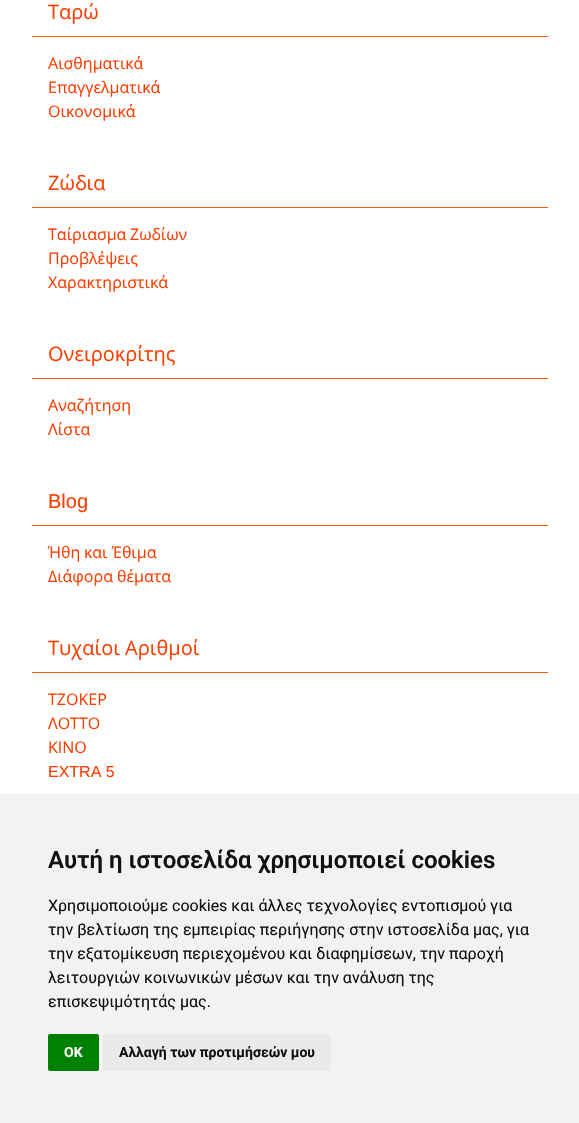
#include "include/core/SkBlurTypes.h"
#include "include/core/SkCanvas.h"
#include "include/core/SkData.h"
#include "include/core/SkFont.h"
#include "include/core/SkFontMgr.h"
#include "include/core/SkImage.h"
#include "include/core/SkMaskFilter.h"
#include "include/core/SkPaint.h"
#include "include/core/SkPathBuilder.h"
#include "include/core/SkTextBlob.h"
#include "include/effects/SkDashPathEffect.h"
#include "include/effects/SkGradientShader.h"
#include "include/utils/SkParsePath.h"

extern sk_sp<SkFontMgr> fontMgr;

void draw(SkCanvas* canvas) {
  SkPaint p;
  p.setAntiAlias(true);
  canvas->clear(SK_ColorWHITE);
  p.setColor(SkColorSetRGB(255, 90, 0));
  canvas->drawRect(SkRect::MakeLTRB(32, 36, 548, 37), p);
  canvas->drawRect(SkRect::MakeLTRB(32, 207, 548, 208), p);
  canvas->drawRect(SkRect::MakeLTRB(32, 378, 548, 379), p);
  canvas->drawRect(SkRect::MakeLTRB(32, 525, 548, 526), p);
  canvas->drawRect(SkRect::MakeLTRB(32, 672, 548, 673), p);
  p.setColor(SkColorSetRGB(242, 242, 242));
  canvas->drawRect(SkRect::MakeLTRB(0, 794, 579, 1123), p);
  p.setColor(SkColorSetRGB(0, 128, 0));
  canvas->drawRoundRect(SkRect::MakeLTRB(48, 1034, 99, 1071), 2, 2, p);
  p.setColor(SkColorSetRGB(234, 234, 234));
  canvas->drawRoundRect(SkRect::MakeLTRB(103, 1034, 331, 1071), 2, 2, p);
  SkFont font1(fontMgr->matchFamilyStyle("Open Sans", SkFontStyle::Normal()), 20);
  font1.setSubpixel(true);
  p.setColor(SkColorSetRGB(255, 61, 0));
  canvas->drawString("Ταρώ", 48, 19, font1, p);
  SkFont font2(fontMgr->matchFamilyStyle("Open Sans", SkFontStyle::Normal()), 16);
  font2.setSubpixel(true);
  canvas->drawString("Αισθηματικά", 48, 69, font2, p);
  canvas->drawString("Επαγγελματικά", 48, 93, font2, p);
  canvas->drawString("Οικονομικά", 48, 117, font2, p);
  canvas->drawString("Ζώδια", 48, 190, font1, p);
  canvas->drawString("Ταίριασμα", 48, 240, font2, p);
  canvas->drawString("Ζωδίων", 130, 240, font2, p);
  canvas->drawString("Προβλέψεις", 48, 264, font2, p);
  canvas->drawString("Χαρακτηριστικά", 48, 288, font2, p);
  canvas->drawString("Ονειροκρίτης", 48, 361, font1, p);
  canvas->drawString("Αναζήτηση", 48, 411, font2, p);
  canvas->drawString("Λίστα", 48, 435, font2, p);
  SkFont font3(fontMgr->matchFamilyStyle("Liberation Sans", SkFontStyle::Normal()), 20);
  font3.setSubpixel(true);
  canvas->drawString("Blog", 48, 508, font3, p);
  canvas->drawString("Ήθη", 48, 558, font2, p);
  canvas->drawString("και", 84, 558, font2, p);
  canvas->drawString("Έθιμα", 112, 558, font2, p);
  canvas->drawString("Διάφορα", 48, 582, font2, p);
  canvas->drawString("θέματα", 117, 582, font2, p);
  canvas->drawString("Τυχαίοι", 48, 655, font1, p);
  canvas->drawString("Αριθμοί", 125, 655, font1, p);
  canvas->drawString("ΤΖΟΚΕΡ", 48, 705, font2, p);
  canvas->drawString("ΛΟΤΤΟ", 48, 729, font2, p);
  canvas->drawString("ΚΙΝΟ", 48, 753, font2, p);
  SkFont font4(fontMgr->matchFamilyStyle("Liberation Sans", SkFontStyle::Normal()), 16);
  font4.setSubpixel(true);
  canvas->drawString("EXTRA 5", 48, 777, font4, p);
  SkFont font5(fontMgr->matchFamilyStyle("Roboto", SkFontStyle(600, SkFontStyle::kNormal_Width, SkFontStyle::kUpright_Slant)), 24);
  font5.setSubpixel(true);
  p.setColor(SkColorSetRGB(17, 17, 17));
  canvas->drawString("Αυτή η ιστοσελίδα χρησιμοποιεί cookies", 48, 868, font5, p);
  SkFont font6(fontMgr->matchFamilyStyle("Roboto", SkFontStyle::Normal()), 16);
  font6.setSubpixel(true);
  canvas->drawString("Χρησιμοποιούμε cookies και άλλες τεχνολογίες εντοπισμού για", 48, 911, font6, p);
  canvas->drawString("την βελτίωση της εμπειρίας περιήγησης στην ιστοσελίδα μας, για", 48, 935, font6, p);
  canvas->drawString("την εξατομίκευση περιεχομένου και διαφημίσεων, την παροχή", 48, 959, font6, p);
  canvas->drawString("λειτουργιών κοινωνικών μέσων και την ανάλυση της", 48, 983, font6, p);
  canvas->drawString("επισκεψιμότητάς μας.", 48, 1007, font6, p);
  SkFont font7(fontMgr->matchFamilyStyle("Roboto", SkFontStyle::Bold()), 14);
  font7.setSubpixel(true);
  p.setColor(SK_ColorWHITE);
  canvas->drawString("OK", 64, 1057, font7, p);
  p.setColor(SkColorSetRGB(17, 17, 17));
  canvas->drawString("Αλλαγή των προτιμήσεών μου", 119, 1057, font7, p);
}
